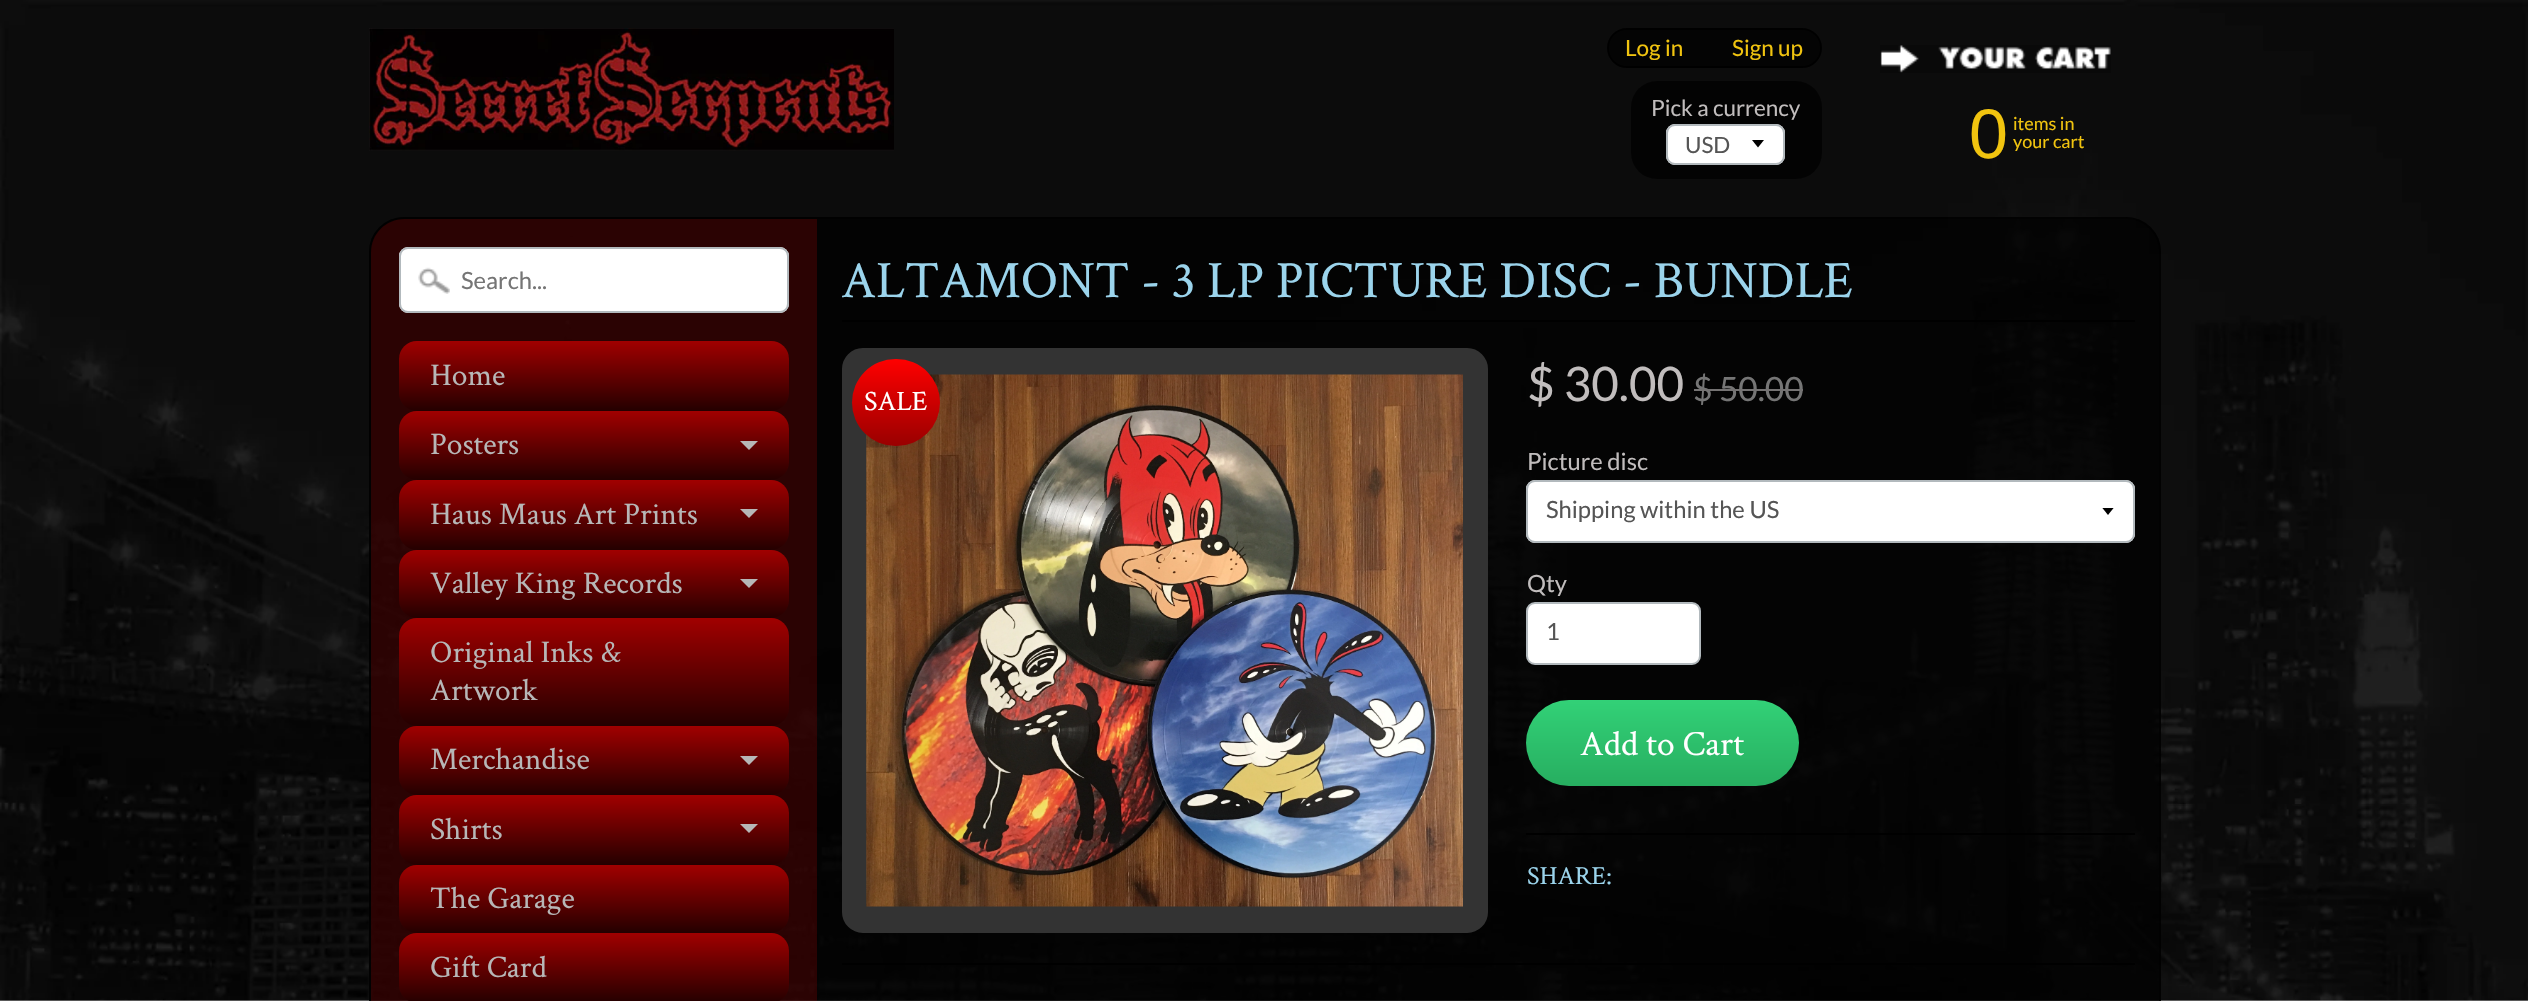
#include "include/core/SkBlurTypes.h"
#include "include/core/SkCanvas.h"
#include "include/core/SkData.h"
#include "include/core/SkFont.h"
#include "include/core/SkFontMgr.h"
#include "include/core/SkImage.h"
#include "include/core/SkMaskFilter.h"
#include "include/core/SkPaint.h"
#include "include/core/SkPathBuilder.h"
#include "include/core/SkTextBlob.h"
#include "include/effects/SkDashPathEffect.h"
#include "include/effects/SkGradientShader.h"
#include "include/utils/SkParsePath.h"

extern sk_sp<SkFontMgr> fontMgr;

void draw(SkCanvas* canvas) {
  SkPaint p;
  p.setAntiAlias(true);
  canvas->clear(SK_ColorWHITE);
  canvas->drawImageRect(SkImages::DeferredFromEncodedData(SkData::MakeFromFileName("images/1.png")), SkRect::MakeLTRB(0, 0, 2528, 1001), SkSamplingOptions());
  canvas->drawImageRect(SkImages::DeferredFromEncodedData(SkData::MakeFromFileName("images/2.png")), SkRect::MakeLTRB(369, 28, 894, 151), SkSamplingOptions());
  p.setColor(SkColorSetRGB(4, 4, 4));
  canvas->drawRoundRect(SkRect::MakeLTRB(1608, 29, 1821, 67), 19, 19, p);
  p.setStyle(SkPaint::kStroke_Style);
  p.setStrokeWidth(2);
  p.setColor(SK_ColorBLACK);
  canvas->drawRoundRect(SkRect::MakeLTRB(1608, 29, 1821, 67), 19, 19, p);
  p.setStyle(SkPaint::kFill_Style);
  p.setColor(SkColorSetRGB(3, 3, 3));
  canvas->drawRoundRect(SkRect::MakeLTRB(1631, 81, 1822, 179), 26, 26, p);
  p.setColor(SK_ColorWHITE);
  canvas->drawRoundRect(SkRect::MakeLTRB(1666, 124, 1785, 165), 9, 9, p);
  p.setColor(SK_ColorBLACK);
  canvas->drawPath(SkPathBuilder().moveTo(1752, 140).lineTo(1758, 147.5f).lineTo(1764, 140).close().detach(), p);
  p.setStyle(SkPaint::kStroke_Style);
  p.setColor(SkColorSetRGB(178, 185, 189));
  canvas->drawRoundRect(SkRect::MakeLTRB(1667, 125, 1784, 164), 8, 8, p);
  canvas->drawImageRect(SkImages::DeferredFromEncodedData(SkData::MakeFromFileName("images/3.png")), SkRect::MakeLTRB(1880, 45, 2111, 73), SkSamplingOptions());
  p.setStyle(SkPaint::kFill_Style);
  p.setColor(SkColorSetARGB(191, 0, 0, 0));
  canvas->drawRoundRect(SkRect::MakeLTRB(369, 217, 2161, 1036), 35, 35, p);
  p.setStyle(SkPaint::kStroke_Style);
  p.setColor(SkColorSetARGB(179, 0, 0, 0));
  canvas->drawRoundRect(SkRect::MakeLTRB(370, 218, 2160, 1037), 34, 34, p);
  p.setStyle(SkPaint::kFill_Style);
  p.setColor(SkColorSetARGB(64, 161, 0, 0));
  canvas->drawPath(SkPathBuilder().moveTo(404, 219).lineTo(817, 219).lineTo(817, 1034).lineTo(371, 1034).lineTo(371, 252).cubicTo(371, 234, 386, 219, 404, 219).close().detach(), p);
  p.setColor(SK_ColorWHITE);
  canvas->drawRoundRect(SkRect::MakeLTRB(399, 247, 789, 313), 9, 9, p);
  canvas->drawImageRect(SkImages::DeferredFromEncodedData(SkData::MakeFromFileName("images/4.png")), SkRect::MakeLTRB(418, 267, 450, 294), SkSamplingOptions());
  p.setStyle(SkPaint::kStroke_Style);
  p.setColor(SkColorSetRGB(178, 185, 189));
  canvas->drawRoundRect(SkRect::MakeLTRB(400, 248, 788, 312), 8, 8, p);
  p.setStyle(SkPaint::kFill_Style);
  {
    const SkColor colors[] = {SkColorSetRGB(161, 0, 0), SkColorSetRGB(36, 0, 0)};
    const float stops[] = {0, 1};
    const SkPoint ends[] = {{594, 341}, {594, 411}};
    p.setShader(SkGradientShader::MakeLinear(ends, colors, stops, 2, SkTileMode::kClamp));
    p.setAlpha(255);
  }
  canvas->drawRoundRect(SkRect::MakeLTRB(399, 341, 789, 411), 18, 18, p);
  {
    const SkColor colors[] = {SkColorSetRGB(161, 0, 0), SkColorSetRGB(36, 0, 0)};
    const float stops[] = {0, 1};
    const SkPoint ends[] = {{594, 411}, {594, 480}};
    p.setShader(SkGradientShader::MakeLinear(ends, colors, stops, 2, SkTileMode::kClamp));
    p.setAlpha(255);
  }
  canvas->drawRoundRect(SkRect::MakeLTRB(399, 411, 789, 480), 18, 18, p);
  p.setShader(nullptr);
  p.setColor(SkColorSetRGB(183, 183, 183));
  canvas->drawPath(SkPathBuilder().moveTo(740, 441).lineTo(758, 441).lineTo(749, 450).close().detach(), p);
  {
    const SkColor colors[] = {SkColorSetRGB(161, 0, 0), SkColorSetRGB(36, 0, 0)};
    const float stops[] = {0, 1};
    const SkPoint ends[] = {{594, 480}, {594, 550}};
    p.setShader(SkGradientShader::MakeLinear(ends, colors, stops, 2, SkTileMode::kClamp));
    p.setAlpha(255);
  }
  canvas->drawRoundRect(SkRect::MakeLTRB(399, 480, 789, 550), 18, 18, p);
  p.setShader(nullptr);
  p.setColor(SkColorSetRGB(183, 183, 183));
  canvas->drawPath(SkPathBuilder().moveTo(740, 509).lineTo(758, 509).lineTo(749, 518).close().detach(), p);
  {
    const SkColor colors[] = {SkColorSetRGB(161, 0, 0), SkColorSetRGB(36, 0, 0)};
    const float stops[] = {0, 1};
    const SkPoint ends[] = {{594, 550}, {594, 618}};
    p.setShader(SkGradientShader::MakeLinear(ends, colors, stops, 2, SkTileMode::kClamp));
    p.setAlpha(255);
  }
  canvas->drawRoundRect(SkRect::MakeLTRB(399, 550, 789, 618), 18, 18, p);
  p.setShader(nullptr);
  p.setColor(SkColorSetRGB(183, 183, 183));
  canvas->drawPath(SkPathBuilder().moveTo(740, 579).lineTo(758, 579).lineTo(749, 588).close().detach(), p);
  {
    const SkColor colors[] = {SkColorSetRGB(161, 0, 0), SkColorSetRGB(36, 0, 0)};
    const float stops[] = {0, 1};
    const SkPoint ends[] = {{594, 618}, {594, 726}};
    p.setShader(SkGradientShader::MakeLinear(ends, colors, stops, 2, SkTileMode::kClamp));
    p.setAlpha(255);
  }
  canvas->drawRoundRect(SkRect::MakeLTRB(399, 618, 789, 726), 18, 18, p);
  {
    const SkColor colors[] = {SkColorSetRGB(161, 0, 0), SkColorSetRGB(36, 0, 0)};
    const float stops[] = {0, 1};
    const SkPoint ends[] = {{594, 726}, {594, 795}};
    p.setShader(SkGradientShader::MakeLinear(ends, colors, stops, 2, SkTileMode::kClamp));
    p.setAlpha(255);
  }
  canvas->drawRoundRect(SkRect::MakeLTRB(399, 726, 789, 795), 18, 18, p);
  p.setShader(nullptr);
  p.setColor(SkColorSetRGB(183, 183, 183));
  canvas->drawPath(SkPathBuilder().moveTo(740, 756).lineTo(758, 756).lineTo(749, 765).close().detach(), p);
  {
    const SkColor colors[] = {SkColorSetRGB(161, 0, 0), SkColorSetRGB(36, 0, 0)};
    const float stops[] = {0, 1};
    const SkPoint ends[] = {{594, 795}, {594, 865}};
    p.setShader(SkGradientShader::MakeLinear(ends, colors, stops, 2, SkTileMode::kClamp));
    p.setAlpha(255);
  }
  canvas->drawRoundRect(SkRect::MakeLTRB(399, 795, 789, 865), 18, 18, p);
  p.setShader(nullptr);
  p.setColor(SkColorSetRGB(183, 183, 183));
  canvas->drawPath(SkPathBuilder().moveTo(740, 824).lineTo(758, 824).lineTo(749, 833).close().detach(), p);
  {
    const SkColor colors[] = {SkColorSetRGB(161, 0, 0), SkColorSetRGB(36, 0, 0)};
    const float stops[] = {0, 1};
    const SkPoint ends[] = {{594, 865}, {594, 933}};
    p.setShader(SkGradientShader::MakeLinear(ends, colors, stops, 2, SkTileMode::kClamp));
    p.setAlpha(255);
  }
  canvas->drawRoundRect(SkRect::MakeLTRB(399, 865, 789, 933), 18, 18, p);
  {
    const SkColor colors[] = {SkColorSetRGB(161, 0, 0), SkColorSetRGB(36, 0, 0)};
    const float stops[] = {0, 1};
    const SkPoint ends[] = {{594, 933}, {594, 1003}};
    p.setShader(SkGradientShader::MakeLinear(ends, colors, stops, 2, SkTileMode::kClamp));
    p.setAlpha(255);
  }
  canvas->drawRoundRect(SkRect::MakeLTRB(399, 933, 789, 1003), 18, 18, p);
  p.setShader(nullptr);
  p.setColor(SK_ColorBLACK);
  canvas->drawRect(SkRect::MakeLTRB(842, 320, 2135, 322), p);
  p.setColor(SkColorSetRGB(51, 51, 51));
  canvas->drawRoundRect(SkRect::MakeLTRB(843, 349, 1487, 932), 20, 20, p);
  p.setStyle(SkPaint::kStroke_Style);
  canvas->drawRoundRect(SkRect::MakeLTRB(843, 349, 1487, 932), 20, 20, p);
  canvas->drawImageRect(SkImages::DeferredFromEncodedData(SkData::MakeFromFileName("images/5.png")), SkRect::MakeLTRB(866, 374, 1463, 907), SkSamplingOptions());
  p.setStyle(SkPaint::kFill_Style);
  {
    const SkColor colors[] = {SkColorSetRGB(255, 0, 0), SkColorSetRGB(153, 0, 0)};
    const float stops[] = {0, 1};
    const SkPoint ends[] = {{896, 359}, {896, 446}};
    p.setShader(SkGradientShader::MakeLinear(ends, colors, stops, 2, SkTileMode::kClamp));
    p.setAlpha(255);
  }
  canvas->drawRoundRect(SkRect::MakeLTRB(852, 359, 940, 446), 43.5f, 43.5f, p);
  p.setShader(nullptr);
  p.setColor(SK_ColorWHITE);
  canvas->drawRoundRect(SkRect::MakeLTRB(1526, 480, 2135, 543), 9, 9, p);
  canvas->save();
  canvas->clipRect(SkRect::MakeLTRB(2102, 508, 2116, 516));
  p.setColor(SK_ColorBLACK);
  canvas->drawPath(SkPathBuilder().moveTo(2102, 507.5f).lineTo(2108, 515).lineTo(2114, 507.5f).close().detach(), p);
  canvas->restore();
  p.setStyle(SkPaint::kStroke_Style);
  p.setColor(SkColorSetRGB(178, 185, 189));
  canvas->drawRoundRect(SkRect::MakeLTRB(1527, 481, 2134, 542), 8, 8, p);
  p.setStyle(SkPaint::kFill_Style);
  p.setColor(SK_ColorWHITE);
  canvas->drawRoundRect(SkRect::MakeLTRB(1527, 603, 1700, 664), 8, 8, p);
  p.setStyle(SkPaint::kStroke_Style);
  p.setColor(SkColorSetRGB(178, 185, 189));
  canvas->drawRoundRect(SkRect::MakeLTRB(1527, 603, 1700, 664), 8, 8, p);
  p.setStyle(SkPaint::kFill_Style);
  {
    const SkColor colors[] = {SkColorSetRGB(50, 209, 119), SkColorSetRGB(39, 174, 96)};
    const float stops[] = {0, 1};
    const SkPoint ends[] = {{1663, 700}, {1663, 786}};
    p.setShader(SkGradientShader::MakeLinear(ends, colors, stops, 2, SkTileMode::kClamp));
    p.setAlpha(255);
  }
  canvas->drawRoundRect(SkRect::MakeLTRB(1526, 700, 1799, 786), 43, 43, p);
  p.setShader(nullptr);
  p.setColor(SK_ColorBLACK);
  canvas->drawRect(SkRect::MakeLTRB(1526, 833, 2135, 835), p);
  canvas->drawRect(SkRect::MakeLTRB(842, 963, 2135, 965), p);
  SkFont font1(fontMgr->matchFamilyStyle("Lato", SkFontStyle::Normal()), 22.5f);
  font1.setSubpixel(true);
  p.setColor(SkColorSetRGB(241, 196, 15));
  canvas->drawString("Log in", 1625, 56, font1, p);
  canvas->drawString("Sign up", 1732, 56, font1, p);
  p.setColor(SkColorSetRGB(193, 189, 189));
  canvas->drawString("Pick a currency", 1651, 116, font1, p);
  p.setColor(SkColorSetRGB(85, 85, 85));
  canvas->drawString("USD", 1685, 153, font1, p);
  SkFont font2(fontMgr->matchFamilyStyle("Liberation Sans", SkFontStyle::Normal()), 70);
  font2.setSubpixel(true);
  p.setColor(SkColorSetRGB(241, 196, 15));
  canvas->drawString("0", 1969, 158, font2, p);
  SkFont font3(fontMgr->matchFamilyStyle("Lato", SkFontStyle::Normal()), 18);
  font3.setSubpixel(true);
  canvas->drawString("items in", 2013, 130, font3, p);
  canvas->drawString("your cart", 2013, 148, font3, p);
  SkFont font4(fontMgr->matchFamilyStyle("Lato", SkFontStyle::Normal()), 23.75f);
  font4.setSubpixel(true);
  p.setColor(SkColorSetRGB(117, 117, 117));
  canvas->drawString("Search...", 461, 289, font4, p);
  SkFont font5(fontMgr->matchFamilyStyle("Crimson Text", SkFontStyle::Normal()), 31.5f);
  font5.setSubpixel(true);
  p.setColor(SkColorSetRGB(183, 183, 183));
  canvas->drawString("Home", 430, 385, font5, p);
  canvas->drawString("Posters", 430, 454, font5, p);
  canvas->drawString("Haus Maus Art Prints", 430, 524, font5, p);
  canvas->drawString("Valley King Records", 430, 593, font5, p);
  canvas->drawString("Original Inks &", 430, 662, font5, p);
  canvas->drawString("Artwork", 430, 700, font5, p);
  canvas->drawString("Merchandise", 430, 769, font5, p);
  canvas->drawString("Shirts", 430, 839, font5, p);
  canvas->drawString("The Garage", 430, 908, font5, p);
  canvas->drawString("Gift Card", 430, 977, font5, p);
  SkFont font6(fontMgr->matchFamilyStyle("Crimson Text", SkFontStyle::Normal()), 52.4f);
  font6.setSubpixel(true);
  p.setColor(SkColorSetRGB(155, 212, 236));
  canvas->drawString("ALTAMONT - 3 LP PICTURE DISC - BUNDLE", 841, 297, font6, p);
  SkFont font7(fontMgr->matchFamilyStyle("Crimson Text", SkFontStyle::Normal()), 28);
  font7.setSubpixel(true);
  p.setColor(SK_ColorWHITE);
  canvas->drawString("SALE", 864, 410, font7, p);
  SkFont font8(fontMgr->matchFamilyStyle("Lato", SkFontStyle::Normal()), 47.5f);
  font8.setSubpixel(true);
  p.setColor(SkColorSetRGB(193, 189, 189));
  canvas->drawString("$ 30.00", 1527, 401, font8, p);
  SkFont font9(fontMgr->matchFamilyStyle("Lato", SkFontStyle::Normal()), 33.5f);
  font9.setSubpixel(true);
  p.setColor(SkColorSetRGB(117, 117, 117));
  canvas->drawString("$ 50.00", 1693, 401, font9, p);
  p.setColor(SkColorSetRGB(117, 115, 115));
  canvas->drawRect(SkRect::MakeLTRB(1694, 389, 1803, 391), p);
  p.setColor(SkColorSetRGB(193, 189, 189));
  canvas->drawString("Picture disc", 1527, 470, font4, p);
  p.setColor(SkColorSetRGB(85, 85, 85));
  canvas->drawString("Shipping within the US", 1546, 518, font4, p);
  p.setColor(SkColorSetRGB(193, 189, 189));
  canvas->drawString("Qty", 1527, 592, font4, p);
  p.setColor(SkColorSetRGB(85, 85, 85));
  canvas->drawString("1", 1546, 640, font4, p);
  SkFont font10(fontMgr->matchFamilyStyle("Crimson Text", SkFontStyle::Normal()), 35.5f);
  font10.setSubpixel(true);
  p.setColor(SK_ColorWHITE);
  canvas->drawString("Add to Cart", 1580, 755, font10, p);
  SkFont font11(fontMgr->matchFamilyStyle("Crimson Text", SkFontStyle::Normal()), 26);
  font11.setSubpixel(true);
  p.setColor(SkColorSetRGB(155, 212, 236));
  canvas->drawString("SHARE:", 1527, 884, font11, p);
}
